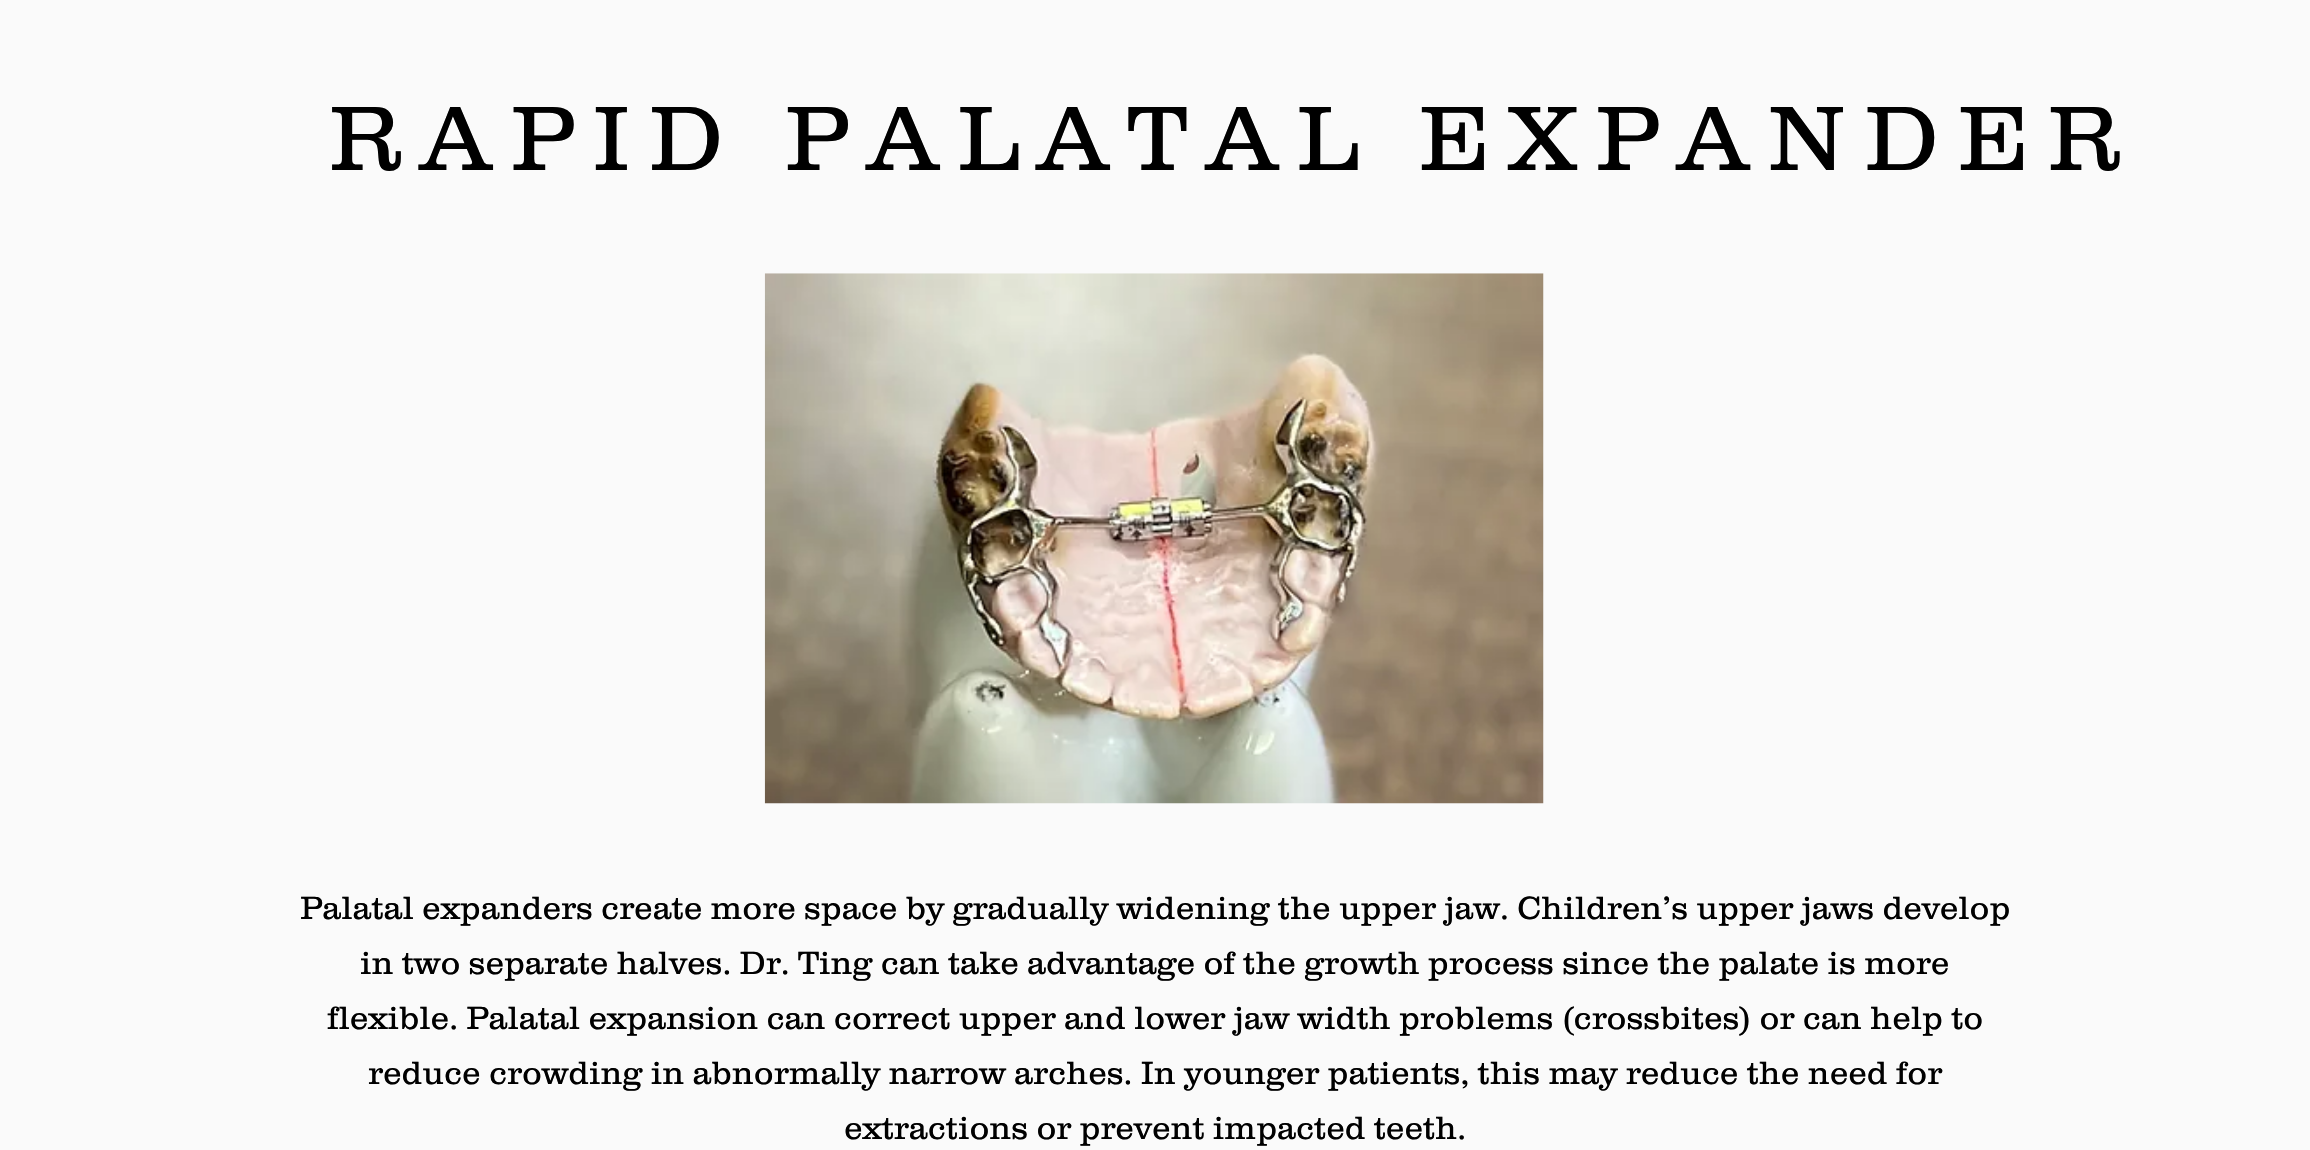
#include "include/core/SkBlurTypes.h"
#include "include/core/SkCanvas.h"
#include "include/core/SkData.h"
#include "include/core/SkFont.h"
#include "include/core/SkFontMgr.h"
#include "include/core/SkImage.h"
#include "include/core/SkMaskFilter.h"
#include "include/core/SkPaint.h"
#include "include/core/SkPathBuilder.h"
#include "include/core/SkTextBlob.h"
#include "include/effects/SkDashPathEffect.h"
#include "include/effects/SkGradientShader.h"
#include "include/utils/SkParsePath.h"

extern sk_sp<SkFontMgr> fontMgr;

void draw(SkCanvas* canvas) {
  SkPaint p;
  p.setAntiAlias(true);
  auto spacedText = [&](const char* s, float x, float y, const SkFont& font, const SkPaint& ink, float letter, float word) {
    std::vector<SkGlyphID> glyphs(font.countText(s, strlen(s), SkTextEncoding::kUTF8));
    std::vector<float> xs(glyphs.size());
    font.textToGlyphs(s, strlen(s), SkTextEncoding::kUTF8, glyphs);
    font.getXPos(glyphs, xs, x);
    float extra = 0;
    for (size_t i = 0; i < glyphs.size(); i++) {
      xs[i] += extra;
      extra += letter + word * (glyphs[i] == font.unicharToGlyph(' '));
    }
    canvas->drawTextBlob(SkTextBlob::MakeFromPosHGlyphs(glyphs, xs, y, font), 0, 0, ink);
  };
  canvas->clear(SkColorSetRGB(250, 250, 250));
  canvas->drawImageRect(SkImages::DeferredFromEncodedData(SkData::MakeFromFileName("images/1.png")), SkRect::MakeLTRB(764, 273, 1544, 804), SkSamplingOptions());
  SkFont font1(fontMgr->matchFamilyStyle("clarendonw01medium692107", SkFontStyle(300, SkFontStyle::kNormal_Width, SkFontStyle::kUpright_Slant)), 94.5f);
  font1.setSubpixel(true);
  p.setColor(SK_ColorBLACK);
  spacedText("RAPID PALATAL EXPANDER", 329, 170, font1, p, 18.9f, 0);
  SkFont font2(fontMgr->matchFamilyStyle("clarendonw01medium692107", SkFontStyle(300, SkFontStyle::kNormal_Width, SkFontStyle::kUpright_Slant)), 33.25f);
  font2.setSubpixel(true);
  canvas->drawString("Palatal expanders create more space by gradually widening the upper jaw. Children’s upper jaws develop", 300, 919, font2, p);
  canvas->drawString("in two separate halves. Dr. Ting can take advantage of the growth process since the palate is more", 360, 974, font2, p);
  canvas->drawString("flexible. Palatal expansion can correct upper and lower jaw width problems (crossbites) or can help to", 327, 1029, font2, p);
  canvas->drawString("reduce crowding in abnormally narrow arches. In younger patients, this may reduce the need for", 368, 1084, font2, p);
  canvas->drawString("extractions or prevent impacted teeth.", 844, 1139, font2, p);
}
